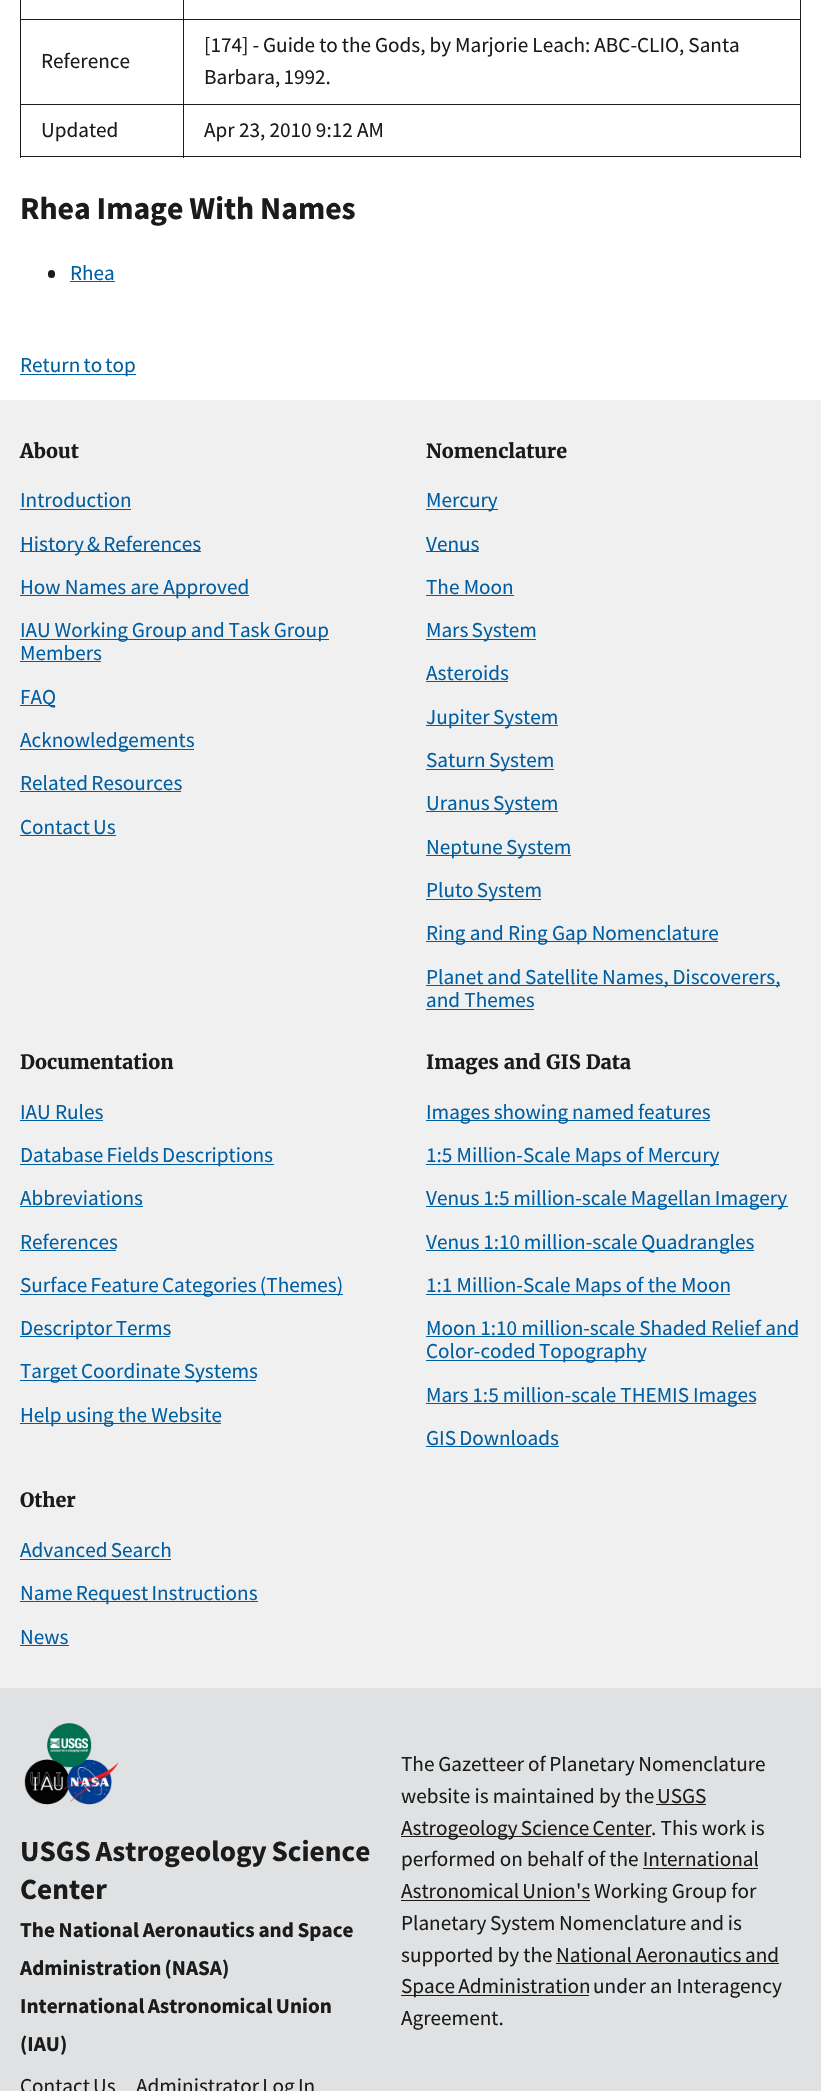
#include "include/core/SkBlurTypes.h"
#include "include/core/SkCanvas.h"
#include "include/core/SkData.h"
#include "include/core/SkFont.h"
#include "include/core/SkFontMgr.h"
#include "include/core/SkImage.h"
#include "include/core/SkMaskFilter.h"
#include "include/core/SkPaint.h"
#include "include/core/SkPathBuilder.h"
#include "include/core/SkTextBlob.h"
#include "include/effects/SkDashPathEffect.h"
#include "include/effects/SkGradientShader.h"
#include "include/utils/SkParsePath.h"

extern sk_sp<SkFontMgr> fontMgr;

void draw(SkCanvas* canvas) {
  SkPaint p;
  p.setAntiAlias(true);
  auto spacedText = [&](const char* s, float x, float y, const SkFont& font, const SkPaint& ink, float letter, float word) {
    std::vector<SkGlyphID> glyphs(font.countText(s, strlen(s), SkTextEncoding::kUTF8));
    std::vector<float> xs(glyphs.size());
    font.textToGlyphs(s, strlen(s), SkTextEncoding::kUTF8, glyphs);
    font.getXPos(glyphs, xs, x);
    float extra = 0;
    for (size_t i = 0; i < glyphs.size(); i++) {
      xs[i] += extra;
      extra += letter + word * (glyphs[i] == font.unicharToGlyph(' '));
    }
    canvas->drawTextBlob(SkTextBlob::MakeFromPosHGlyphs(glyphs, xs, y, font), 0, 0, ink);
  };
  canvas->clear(SK_ColorWHITE);
  p.setColor(SkColorSetRGB(27, 27, 27));
  canvas->drawRect(SkRect::MakeLTRB(183, 19, 801, 20), p);
  canvas->drawRect(SkRect::MakeLTRB(183, 104, 801, 105), p);
  canvas->drawRect(SkRect::MakeLTRB(800, 104, 801, 158), p);
  canvas->drawRect(SkRect::MakeLTRB(183, 156, 801, 157), p);
  canvas->drawRect(SkRect::MakeLTRB(183, 104, 184, 158), p);
  canvas->drawRect(SkRect::MakeLTRB(20, 104, 184, 105), p);
  canvas->drawRect(SkRect::MakeLTRB(183, 19, 184, 105), p);
  canvas->drawRect(SkRect::MakeLTRB(20, 19, 184, 20), p);
  canvas->drawRect(SkRect::MakeLTRB(183, 0, 184, 20), p);
  canvas->drawRect(SkRect::MakeLTRB(20, 156, 184, 157), p);
  canvas->drawRect(SkRect::MakeLTRB(20, 104, 21, 158), p);
  canvas->drawRect(SkRect::MakeLTRB(20, 0, 21, 105), p);
  canvas->drawRect(SkRect::MakeLTRB(800, 0, 801, 105), p);
  canvas->drawRoundRect(SkRect::MakeLTRB(48, 270, 55, 278), 3.5f, 3.5f, p);
  p.setColor(SkColorSetRGB(0, 94, 162));
  canvas->drawRect(SkRect::MakeLTRB(70, 281, 115, 282), p);
  canvas->drawRect(SkRect::MakeLTRB(20, 374, 136, 375), p);
  p.setColor(SkColorSetRGB(240, 240, 240));
  canvas->drawRect(SkRect::MakeLTRB(0, 400, 821, 1688), p);
  p.setColor(SkColorSetRGB(0, 94, 162));
  canvas->drawRect(SkRect::MakeLTRB(20, 509, 131, 510), p);
  canvas->drawRect(SkRect::MakeLTRB(20, 551, 201, 552), p);
  canvas->drawRect(SkRect::MakeLTRB(20, 595, 249, 596), p);
  canvas->drawRect(SkRect::MakeLTRB(20, 639, 329, 640), p);
  canvas->drawRect(SkRect::MakeLTRB(20, 661, 101, 662), p);
  canvas->drawRect(SkRect::MakeLTRB(20, 705, 55, 706), p);
  canvas->drawRect(SkRect::MakeLTRB(20, 749, 194, 750), p);
  canvas->drawRect(SkRect::MakeLTRB(20, 791, 181, 792), p);
  canvas->drawRect(SkRect::MakeLTRB(20, 835, 116, 836), p);
  canvas->drawRect(SkRect::MakeLTRB(426, 509, 498, 510), p);
  canvas->drawRect(SkRect::MakeLTRB(426, 551, 479, 552), p);
  canvas->drawRect(SkRect::MakeLTRB(426, 595, 514, 596), p);
  canvas->drawRect(SkRect::MakeLTRB(426, 639, 536, 640), p);
  canvas->drawRect(SkRect::MakeLTRB(426, 681, 508, 682), p);
  canvas->drawRect(SkRect::MakeLTRB(426, 725, 558, 726), p);
  canvas->drawRect(SkRect::MakeLTRB(426, 769, 554, 770), p);
  canvas->drawRect(SkRect::MakeLTRB(426, 811, 558, 812), p);
  canvas->drawRect(SkRect::MakeLTRB(426, 855, 571, 856), p);
  canvas->drawRect(SkRect::MakeLTRB(426, 899, 541, 900), p);
  canvas->drawRect(SkRect::MakeLTRB(426, 941, 718, 942), p);
  canvas->drawRect(SkRect::MakeLTRB(426, 985, 780, 986), p);
  canvas->drawRect(SkRect::MakeLTRB(426, 1009, 534, 1010), p);
  canvas->drawRect(SkRect::MakeLTRB(20, 1120, 103, 1121), p);
  canvas->drawRect(SkRect::MakeLTRB(20, 1164, 274, 1165), p);
  canvas->drawRect(SkRect::MakeLTRB(20, 1206, 143, 1207), p);
  canvas->drawRect(SkRect::MakeLTRB(20, 1250, 116, 1251), p);
  canvas->drawRect(SkRect::MakeLTRB(20, 1294, 343, 1295), p);
  canvas->drawRect(SkRect::MakeLTRB(20, 1336, 170, 1337), p);
  canvas->drawRect(SkRect::MakeLTRB(20, 1380, 256, 1381), p);
  canvas->drawRect(SkRect::MakeLTRB(20, 1423, 221, 1424), p);
  canvas->drawRect(SkRect::MakeLTRB(426, 1120, 710, 1121), p);
  canvas->drawRect(SkRect::MakeLTRB(426, 1164, 719, 1165), p);
  canvas->drawRect(SkRect::MakeLTRB(426, 1206, 788, 1207), p);
  canvas->drawRect(SkRect::MakeLTRB(426, 1250, 754, 1251), p);
  canvas->drawRect(SkRect::MakeLTRB(426, 1294, 730, 1295), p);
  canvas->drawRect(SkRect::MakeLTRB(426, 1336, 798, 1337), p);
  canvas->drawRect(SkRect::MakeLTRB(426, 1360, 645, 1361), p);
  canvas->drawRect(SkRect::MakeLTRB(426, 1403, 756, 1404), p);
  canvas->drawRect(SkRect::MakeLTRB(426, 1446, 559, 1447), p);
  canvas->drawRect(SkRect::MakeLTRB(20, 1559, 171, 1560), p);
  canvas->drawRect(SkRect::MakeLTRB(20, 1601, 258, 1602), p);
  canvas->drawRect(SkRect::MakeLTRB(20, 1645, 69, 1646), p);
  p.setColor(SkColorSetRGB(223, 225, 226));
  canvas->drawRect(SkRect::MakeLTRB(0, 1688, 821, 2091), p);
  canvas->drawImageRect(SkImages::DeferredFromEncodedData(SkData::MakeFromFileName("images/1.png")), SkRect::MakeLTRB(24, 1723, 119, 1805), SkSamplingOptions());
  p.setColor(SkColorSetRGB(27, 27, 27));
  canvas->drawRect(SkRect::MakeLTRB(656, 1804, 706, 1805), p);
  canvas->drawRect(SkRect::MakeLTRB(401, 1836, 651, 1837), p);
  canvas->drawRect(SkRect::MakeLTRB(643, 1868, 758, 1869), p);
  canvas->drawRect(SkRect::MakeLTRB(401, 1900, 590, 1901), p);
  canvas->drawRect(SkRect::MakeLTRB(556, 1963, 779, 1964), p);
  canvas->drawRect(SkRect::MakeLTRB(401, 1995, 589, 1996), p);
  SkFont font1(fontMgr->matchFamilyStyle("Source Sans Pro", SkFontStyle::Normal()), 21.2f);
  font1.setSubpixel(true);
  canvas->drawString("Reference", 41, 68, font1, p);
  spacedText("[174] - Guide to the Gods, by Marjorie Leach: ABC-CLIO, Santa", 204, 52, font1, p, 0, -0.25f);
  spacedText("Barbara, 1992.", 204, 84, font1, p, 0, -1);
  canvas->drawString("Updated", 41, 137, font1, p);
  canvas->drawString("Apr 23, 2010 9:12 AM", 204, 137, font1, p);
  SkFont font2(fontMgr->matchFamilyStyle("Source Sans Pro", SkFontStyle::Bold()), 31.75f);
  font2.setSubpixel(true);
  spacedText("Rhea Image With Names", 20, 219, font2, p, 0, -0.5f);
  p.setColor(SkColorSetRGB(0, 94, 162));
  canvas->drawString("Rhea", 70, 280, font1, p);
  spacedText("Return to top", 20, 372, font1, p, 0, -1);
  SkFont font3(fontMgr->matchFamilyStyle("Merriweather", SkFontStyle::Bold()), 19.6f);
  font3.setSubpixel(true);
  p.setColor(SkColorSetRGB(27, 27, 27));
  canvas->drawString("About", 20, 458, font3, p);
  p.setColor(SkColorSetRGB(0, 94, 162));
  canvas->drawString("Introduction", 20, 507, font1, p);
  spacedText("History & References", 20, 551, font1, p, 0, -1);
  canvas->drawString("How Names are Approved", 20, 594, font1, p);
  spacedText("IAU Working Group and Task Group", 20, 637, font1, p, 0, -0.5f);
  canvas->drawString("Members", 20, 660, font1, p);
  canvas->drawString("FAQ", 20, 704, font1, p);
  canvas->drawString("Acknowledgements", 20, 747, font1, p);
  spacedText("Related Resources", 20, 790, font1, p, 0, -1);
  spacedText("Contact Us", 20, 834, font1, p, 0, -1);
  p.setColor(SkColorSetRGB(27, 27, 27));
  canvas->drawString("Nomenclature", 426, 458, font3, p);
  p.setColor(SkColorSetRGB(0, 94, 162));
  canvas->drawString("Mercury", 426, 507, font1, p);
  canvas->drawString("Venus", 426, 551, font1, p);
  canvas->drawString("The Moon", 426, 594, font1, p);
  spacedText("Mars System", 426, 637, font1, p, 0, -1);
  canvas->drawString("Asteroids", 426, 680, font1, p);
  spacedText("Jupiter System", 426, 724, font1, p, 0, -1);
  spacedText("Saturn System", 426, 767, font1, p, 0, -1);
  spacedText("Uranus System", 426, 810, font1, p, 0, -1);
  spacedText("Neptune System", 426, 854, font1, p, 0, -1);
  spacedText("Pluto System", 426, 897, font1, p, 0, -1);
  canvas->drawString("Ring and Ring Gap Nomenclature", 426, 940, font1, p);
  spacedText("Planet and Satellite Names, Discoverers,", 426, 984, font1, p, 0, -0.5f);
  canvas->drawString("and Themes", 426, 1007, font1, p);
  p.setColor(SkColorSetRGB(27, 27, 27));
  canvas->drawString("Documentation", 20, 1069, font3, p);
  p.setColor(SkColorSetRGB(0, 94, 162));
  canvas->drawString("IAU Rules", 20, 1119, font1, p);
  spacedText("Database Fields Descriptions", 20, 1162, font1, p, 0, -1);
  canvas->drawString("Abbreviations", 20, 1205, font1, p);
  canvas->drawString("References", 20, 1249, font1, p);
  spacedText("Surface Feature Categories (Themes)", 20, 1292, font1, p, 0, -1);
  spacedText("Descriptor Terms", 20, 1335, font1, p, 0, -1);
  spacedText("Target Coordinate Systems", 20, 1378, font1, p, 0, -1);
  canvas->drawString("Help using the Website", 20, 1422, font1, p);
  p.setColor(SkColorSetRGB(27, 27, 27));
  canvas->drawString("Images and GIS Data", 426, 1069, font3, p);
  p.setColor(SkColorSetRGB(0, 94, 162));
  spacedText("Images showing named features", 426, 1119, font1, p, 0, -0.5f);
  canvas->drawString("1:5 Million-Scale Maps of Mercury", 426, 1162, font1, p);
  spacedText("Venus 1:5 million-scale Magellan Imagery", 426, 1205, font1, p, 0, -0.5f);
  spacedText("Venus 1:10 million-scale Quadrangles", 426, 1249, font1, p, 0, -0.5f);
  canvas->drawString("1:1 Million-Scale Maps of the Moon", 426, 1292, font1, p);
  canvas->drawString("Moon 1:10 million-scale Shaded Relief and", 426, 1335, font1, p);
  spacedText("Color-coded Topography", 426, 1358, font1, p, 0, -1);
  spacedText("Mars 1:5 million-scale THEMIS Images", 426, 1402, font1, p, 0, -0.25f);
  spacedText("GIS Downloads", 426, 1445, font1, p, 0, -1);
  p.setColor(SkColorSetRGB(27, 27, 27));
  canvas->drawString("Other", 20, 1507, font3, p);
  p.setColor(SkColorSetRGB(0, 94, 162));
  spacedText("Advanced Search", 20, 1557, font1, p, 0, -1);
  spacedText("Name Request Instructions", 20, 1600, font1, p, 0, -1);
  canvas->drawString("News", 20, 1644, font1, p);
  SkFont font4(fontMgr->matchFamilyStyle("Source Sans Pro", SkFontStyle::Bold()), 29.25f);
  font4.setSubpixel(true);
  p.setColor(SkColorSetRGB(27, 27, 27));
  spacedText("USGS Astrogeology Science", 20, 1861, font4, p, 0, -1);
  canvas->drawString("Center", 20, 1899, font4, p);
  SkFont font5(fontMgr->matchFamilyStyle("Source Sans Pro", SkFontStyle::Bold()), 21.2f);
  font5.setSubpixel(true);
  spacedText("The National Aeronautics and Space", 20, 1937, font5, p, 0, -0.5f);
  spacedText("Administration (NASA)", 20, 1975, font5, p, 0, -1);
  spacedText("International Astronomical Union", 20, 2013, font5, p, 0, -1);
  canvas->drawString("(IAU)", 20, 2051, font5, p);
  spacedText("The Gazetteer of Planetary Nomenclature", 401, 1771, font1, p, 0, -0.5f);
  canvas->drawString("website is maintained by the", 401, 1803, font1, p);
  canvas->drawString("USGS", 657, 1803, font1, p);
  spacedText("Astrogeology Science Center", 401, 1835, font1, p, 0, -1);
  canvas->drawString(". This work is", 651, 1835, font1, p);
  canvas->drawString("performed on behalf of the International", 401, 1866, font1, p);
  spacedText("Astronomical Union's", 401, 1898, font1, p, 0, -1);
  canvas->drawString("Working Group for", 594, 1898, font1, p);
  canvas->drawString("Planetary", 401, 1930, font1, p);
  spacedText("System Nomenclature and is", 490, 1930, font1, p, 0, -0.5f);
  canvas->drawString("supported by the", 401, 1962, font1, p);
  spacedText("National Aeronautics and", 556, 1962, font1, p, 0, -0.5f);
  spacedText("Space Administration", 401, 1993, font1, p, 0, -1);
  canvas->drawString("under an Interagency", 593, 1993, font1, p);
  canvas->drawString("Agreement.", 401, 2025, font1, p);
  spacedText("Contact Us", 20, 2093, font1, p, 0, -1);
  spacedText("Administrator Log In", 136, 2093, font1, p, 0, -1);
}
